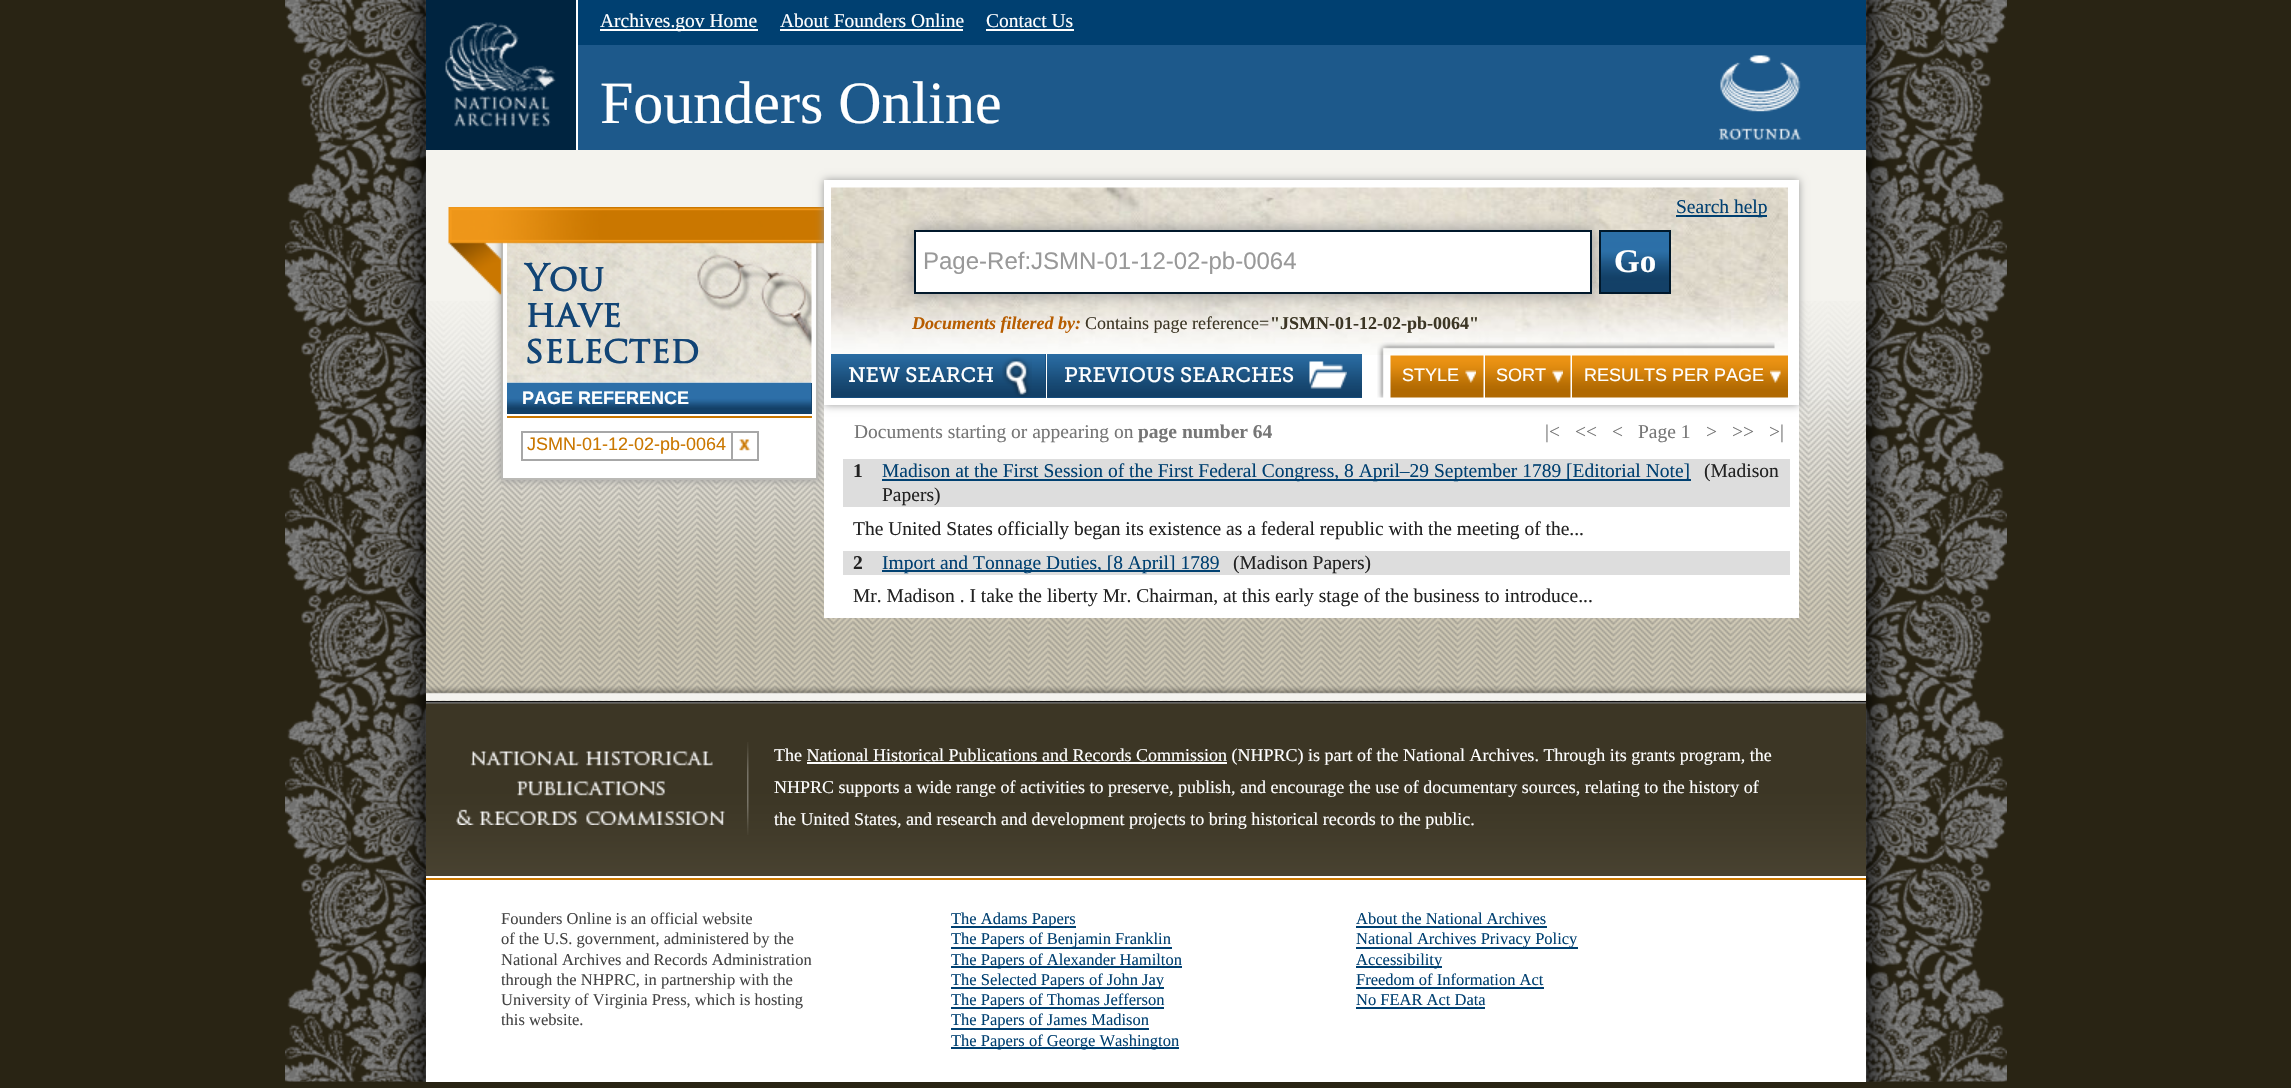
#include "include/core/SkBlurTypes.h"
#include "include/core/SkCanvas.h"
#include "include/core/SkData.h"
#include "include/core/SkFont.h"
#include "include/core/SkFontMgr.h"
#include "include/core/SkImage.h"
#include "include/core/SkMaskFilter.h"
#include "include/core/SkPaint.h"
#include "include/core/SkPathBuilder.h"
#include "include/core/SkTextBlob.h"
#include "include/effects/SkDashPathEffect.h"
#include "include/effects/SkGradientShader.h"
#include "include/utils/SkParsePath.h"

extern sk_sp<SkFontMgr> fontMgr;

void draw(SkCanvas* canvas) {
  SkPaint p;
  p.setAntiAlias(true);
  canvas->clear(SkColorSetRGB(41, 36, 20));
  canvas->drawImageRect(SkImages::DeferredFromEncodedData(SkData::MakeFromFileName("images/1.png")), SkRect::MakeLTRB(285, 0, 2007, 1082), SkSamplingOptions());
  canvas->drawImageRect(SkImages::DeferredFromEncodedData(SkData::MakeFromFileName("images/2.png")), SkRect::MakeLTRB(396, 0, 1896, 1082), SkSamplingOptions());
  p.setColor(SK_ColorWHITE);
  canvas->drawRect(SkRect::MakeLTRB(576, 0, 578, 150), p);
  canvas->drawImageRect(SkImages::DeferredFromEncodedData(SkData::MakeFromFileName("images/3.png")), SkRect::MakeLTRB(426, 0, 576, 150), SkSamplingOptions());
  p.setColor(SkColorSetRGB(0, 64, 113));
  canvas->drawRect(SkRect::MakeLTRB(578, 0, 1866, 45), p);
  p.setColor(SK_ColorWHITE);
  canvas->drawRect(SkRect::MakeLTRB(600, 29, 758, 31), p);
  canvas->drawRect(SkRect::MakeLTRB(780, 29, 963, 31), p);
  canvas->drawRect(SkRect::MakeLTRB(986, 29, 1074, 31), p);
  p.setColor(SkColorSetRGB(29, 89, 139));
  canvas->drawRect(SkRect::MakeLTRB(578, 45, 1866, 150), p);
  canvas->drawImageRect(SkImages::DeferredFromEncodedData(SkData::MakeFromFileName("images/4.png")), SkRect::MakeLTRB(1719, 55, 1802, 140), SkSamplingOptions());
  p.setColor(SkColorSetRGB(244, 243, 238));
  canvas->drawRect(SkRect::MakeLTRB(426, 150, 1866, 701), p);
  canvas->drawImageRect(SkImages::DeferredFromEncodedData(SkData::MakeFromFileName("images/5.png")), SkRect::MakeLTRB(426, 400, 1866, 701), SkSamplingOptions());
  canvas->drawImageRect(SkImages::DeferredFromEncodedData(SkData::MakeFromFileName("images/24.png")), SkRect::MakeLTRB(426, 301, 1866, 701), SkSamplingOptions());
  p.setColor(SkColorSetRGB(153, 153, 153));
  p.setMaskFilter(SkMaskFilter::MakeBlur(kNormal_SkBlurStyle, 4));
  canvas->drawRect(SkRect::MakeLTRB(501, 225, 818, 480), p);
  p.setMaskFilter(nullptr);
  p.setColor(SK_ColorWHITE);
  canvas->drawRect(SkRect::MakeLTRB(503, 242, 816, 478), p);
  p.setStyle(SkPaint::kStroke_Style);
  p.setStrokeWidth(2);
  p.setColor(SkColorSetRGB(186, 185, 181));
  canvas->drawRect(SkRect::MakeLTRB(502, 226, 817, 479), p);
  canvas->drawImageRect(SkImages::DeferredFromEncodedData(SkData::MakeFromFileName("images/7.png")), SkRect::MakeLTRB(507, 242, 812, 383), SkSamplingOptions());
  canvas->drawImageRect(SkImages::DeferredFromEncodedData(SkData::MakeFromFileName("images/8.png")), SkRect::MakeLTRB(697, 254, 812, 348), SkSamplingOptions());
  p.setStyle(SkPaint::kFill_Style);
  p.setColor(SkColorSetRGB(202, 119, 0));
  canvas->drawRect(SkRect::MakeLTRB(507, 416, 812, 418), p);
  p.setColor(SkColorSetRGB(19, 64, 103));
  canvas->drawRect(SkRect::MakeLTRB(507, 383, 812, 414), p);
  canvas->drawImageRect(SkImages::DeferredFromEncodedData(SkData::MakeFromFileName("images/9.png")), SkRect::MakeLTRB(507, 382, 812, 408), SkSamplingOptions());
  p.setStyle(SkPaint::kStroke_Style);
  p.setColor(SkColorSetRGB(167, 167, 167));
  canvas->drawRect(SkRect::MakeLTRB(522, 432, 758, 460), p);
  p.setStyle(SkPaint::kFill_Style);
  canvas->drawRect(SkRect::MakeLTRB(731, 432, 733, 459), p);
  canvas->drawImageRect(SkImages::DeferredFromEncodedData(SkData::MakeFromFileName("images/10.png")), SkRect::MakeLTRB(739, 439, 751, 451), SkSamplingOptions());
  p.setColor(SK_ColorWHITE);
  canvas->drawRect(SkRect::MakeLTRB(824, 405, 1799, 618), p);
  p.setColor(SkColorSetRGB(221, 221, 221));
  canvas->drawRect(SkRect::MakeLTRB(843, 459, 1790, 507), p);
  p.setColor(SkColorSetRGB(0, 64, 113));
  canvas->drawRect(SkRect::MakeLTRB(882, 479, 1691, 481), p);
  p.setColor(SkColorSetRGB(221, 221, 221));
  canvas->drawRect(SkRect::MakeLTRB(843, 551, 1790, 575), p);
  p.setColor(SkColorSetRGB(0, 64, 113));
  canvas->drawRect(SkRect::MakeLTRB(882, 570, 1220, 572), p);
  canvas->drawImageRect(SkImages::DeferredFromEncodedData(SkData::MakeFromFileName("images/25.png")), SkRect::MakeLTRB(426, 686, 1866, 701), SkSamplingOptions());
  p.setColor(SK_ColorWHITE);
  canvas->drawRect(SkRect::MakeLTRB(426, 876, 1866, 1082), p);
  canvas->drawImageRect(SkImages::DeferredFromEncodedData(SkData::MakeFromFileName("images/26.png")), SkRect::MakeLTRB(426, 701, 1866, 876), SkSamplingOptions());
  canvas->drawImageRect(SkImages::DeferredFromEncodedData(SkData::MakeFromFileName("images/27.png")), SkRect::MakeLTRB(456, 751, 725, 825), SkSamplingOptions());
  canvas->drawImageRect(SkImages::DeferredFromEncodedData(SkData::MakeFromFileName("images/28.png")), SkRect::MakeLTRB(747, 742, 749, 835), SkSamplingOptions());
  canvas->drawRect(SkRect::MakeLTRB(807, 762, 1227, 764), p);
  p.setColor(SkColorSetRGB(202, 119, 0));
  canvas->drawRect(SkRect::MakeLTRB(426, 878, 1866, 880), p);
  p.setColor(SkColorSetRGB(0, 64, 113));
  canvas->drawRect(SkRect::MakeLTRB(951, 926, 1076, 928), p);
  canvas->drawRect(SkRect::MakeLTRB(951, 947, 1172, 949), p);
  canvas->drawRect(SkRect::MakeLTRB(951, 966, 1182, 968), p);
  canvas->drawRect(SkRect::MakeLTRB(951, 987, 1164, 989), p);
  canvas->drawRect(SkRect::MakeLTRB(951, 1007, 1164, 1009), p);
  canvas->drawRect(SkRect::MakeLTRB(951, 1028, 1149, 1030), p);
  canvas->drawRect(SkRect::MakeLTRB(951, 1047, 1179, 1049), p);
  canvas->drawRect(SkRect::MakeLTRB(1356, 926, 1547, 928), p);
  canvas->drawRect(SkRect::MakeLTRB(1356, 947, 1578, 949), p);
  canvas->drawRect(SkRect::MakeLTRB(1356, 966, 1442, 968), p);
  canvas->drawRect(SkRect::MakeLTRB(1356, 987, 1544, 989), p);
  canvas->drawRect(SkRect::MakeLTRB(1356, 1007, 1485, 1009), p);
  SkFont font1(fontMgr->matchFamilyStyle("Liberation Serif", SkFontStyle::Normal()), 19.5f);
  font1.setSubpixel(true);
  p.setColor(SK_ColorWHITE);
  canvas->drawString("Archives.gov Home", 600, 27, font1, p);
  canvas->drawString("About Founders Online", 780, 27, font1, p);
  canvas->drawString("Contact Us", 986, 27, font1, p);
  SkFont font2(fontMgr->matchFamilyStyle("Liberation Serif", SkFontStyle::Normal()), 60);
  font2.setSubpixel(true);
  canvas->drawString("Founders Online", 600, 123, font2, p);
  SkFont font3(fontMgr->matchFamilyStyle("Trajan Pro", SkFontStyle::Bold()), 36);
  font3.setSubpixel(true);
  p.setColor(SkColorSetRGB(17, 68, 117));
  canvas->drawString("You", 525, 291, font3, p);
  canvas->drawImageRect(SkImages::DeferredFromEncodedData(SkData::MakeFromFileName("images/6.png")), SkRect::MakeLTRB(448, 207, 824, 296), SkSamplingOptions());
  canvas->drawString("have", 525, 327, font3, p);
  canvas->drawString("selected", 525, 363, font3, p);
  SkFont font4(fontMgr->matchFamilyStyle("Liberation Sans", SkFontStyle::Bold()), 18);
  font4.setSubpixel(true);
  p.setColor(SK_ColorWHITE);
  canvas->drawString("PAGE REFERENCE", 522, 404, font4, p);
  SkFont font5(fontMgr->matchFamilyStyle("Liberation Sans", SkFontStyle::Normal()), 18);
  font5.setSubpixel(true);
  p.setColor(SkColorSetRGB(202, 119, 0));
  canvas->drawString("JSMN-01-12-02-pb-0064", 527, 450, font5, p);
  p.setColor(SkColorSetRGB(153, 153, 153));
  p.setMaskFilter(SkMaskFilter::MakeBlur(kNormal_SkBlurStyle, 4));
  canvas->drawRect(SkRect::MakeLTRB(824, 180, 1799, 405), p);
  p.setMaskFilter(nullptr);
  p.setColor(SK_ColorWHITE);
  canvas->drawRect(SkRect::MakeLTRB(824, 180, 1799, 405), p);
  canvas->drawImageRect(SkImages::DeferredFromEncodedData(SkData::MakeFromFileName("images/11.png")), SkRect::MakeLTRB(831, 187, 1788, 355), SkSamplingOptions());
  p.setColor(SkColorSetRGB(0, 64, 113));
  canvas->drawRect(SkRect::MakeLTRB(1676, 215, 1767, 217), p);
  canvas->drawString("Search help", 1676, 213, font1, p);
  p.setColor(SkColorSetRGB(153, 153, 153));
  p.setMaskFilter(SkMaskFilter::MakeBlur(kNormal_SkBlurStyle, 7.5f));
  canvas->drawRect(SkRect::MakeLTRB(914, 230, 1592, 294), p);
  p.setMaskFilter(nullptr);
  p.setColor(SK_ColorWHITE);
  canvas->drawRect(SkRect::MakeLTRB(915, 231, 1591, 293), p);
  p.setStyle(SkPaint::kStroke_Style);
  p.setColor(SkColorSetRGB(0, 24, 43));
  canvas->drawRect(SkRect::MakeLTRB(915, 231, 1591, 293), p);
  SkFont font6(fontMgr->matchFamilyStyle("Liberation Sans", SkFontStyle::Normal()), 24);
  font6.setSubpixel(true);
  p.setStyle(SkPaint::kFill_Style);
  p.setColor(SkColorSetRGB(153, 153, 153));
  canvas->drawString("Page-Ref:JSMN-01-12-02-pb-0064", 923, 269, font6, p);
  canvas->drawImageRect(SkImages::DeferredFromEncodedData(SkData::MakeFromFileName("images/12.png")), SkRect::MakeLTRB(1601, 232, 1669, 292), SkSamplingOptions());
  p.setStyle(SkPaint::kStroke_Style);
  p.setColor(SkColorSetRGB(0, 24, 43));
  canvas->drawRect(SkRect::MakeLTRB(1600, 231, 1670, 293), p);
  SkFont font7(fontMgr->matchFamilyStyle("Liberation Serif", SkFontStyle::Bold()), 33);
  font7.setSubpixel(true);
  p.setStyle(SkPaint::kFill_Style);
  p.setColor(SK_ColorWHITE);
  canvas->drawString("Go", 1614, 272, font7, p);
  SkFont font8(fontMgr->matchFamilyStyle("Liberation Serif", SkFontStyle::BoldItalic()), 18);
  font8.setSubpixel(true);
  p.setColor(SkColorSetRGB(183, 93, 0));
  canvas->drawString("Documents filtered by:", 912, 329, font8, p);
  SkFont font9(fontMgr->matchFamilyStyle("Liberation Serif", SkFontStyle::Normal()), 18);
  font9.setSubpixel(true);
  p.setColor(SkColorSetRGB(60, 54, 37));
  canvas->drawString("Contains page reference=", 1085, 329, font9, p);
  SkFont font10(fontMgr->matchFamilyStyle("Liberation Serif", SkFontStyle::Bold()), 18);
  font10.setSubpixel(true);
  canvas->drawString("\"JSMN-01-12-02-pb-0064\"", 1270, 329, font10, p);
  p.setColor(SkColorSetRGB(19, 64, 103));
  canvas->drawRect(SkRect::MakeLTRB(831, 354, 1046, 398), p);
  canvas->drawImageRect(SkImages::DeferredFromEncodedData(SkData::MakeFromFileName("images/13.png")), SkRect::MakeLTRB(831, 354, 1046, 398), SkSamplingOptions());
  canvas->drawImageRect(SkImages::DeferredFromEncodedData(SkData::MakeFromFileName("images/14.png")), SkRect::MakeLTRB(1002, 357, 1032, 397), SkSamplingOptions());
  SkFont font11(fontMgr->matchFamilyStyle("Museo Slab", SkFontStyle::Normal()), 21);
  font11.setSubpixel(true);
  p.setColor(SK_ColorWHITE);
  canvas->drawString("NEW SEARCH", 848, 382, font11, p);
  p.setColor(SkColorSetRGB(19, 64, 103));
  canvas->drawRect(SkRect::MakeLTRB(1047, 397, 1362, 398), p);
  canvas->drawImageRect(SkImages::DeferredFromEncodedData(SkData::MakeFromFileName("images/15.png")), SkRect::MakeLTRB(1047, 354, 1362, 398), SkSamplingOptions());
  canvas->drawImageRect(SkImages::DeferredFromEncodedData(SkData::MakeFromFileName("images/16.png")), SkRect::MakeLTRB(1309, 361, 1347, 389), SkSamplingOptions());
  p.setColor(SK_ColorWHITE);
  canvas->drawString("PREVIOUS SEARCHES", 1064, 382, font11, p);
  canvas->drawImageRect(SkImages::DeferredFromEncodedData(SkData::MakeFromFileName("images/17.png")), SkRect::MakeLTRB(1377, 342, 1775, 398), SkSamplingOptions());
  canvas->drawImageRect(SkImages::DeferredFromEncodedData(SkData::MakeFromFileName("images/18.png")), SkRect::MakeLTRB(1390, 355, 1484, 398), SkSamplingOptions());
  canvas->drawString("STYLE", 1402, 381, font5, p);
  canvas->drawImageRect(SkImages::DeferredFromEncodedData(SkData::MakeFromFileName("images/19.png")), SkRect::MakeLTRB(1465, 370, 1476, 383), SkSamplingOptions());
  canvas->drawImageRect(SkImages::DeferredFromEncodedData(SkData::MakeFromFileName("images/20.png")), SkRect::MakeLTRB(1485, 355, 1571, 398), SkSamplingOptions());
  canvas->drawString("SORT", 1496, 381, font5, p);
  canvas->drawImageRect(SkImages::DeferredFromEncodedData(SkData::MakeFromFileName("images/21.png")), SkRect::MakeLTRB(1552, 370, 1563, 383), SkSamplingOptions());
  canvas->drawImageRect(SkImages::DeferredFromEncodedData(SkData::MakeFromFileName("images/22.png")), SkRect::MakeLTRB(1572, 355, 1788, 398), SkSamplingOptions());
  canvas->drawString("RESULTS PER PAGE", 1584, 381, font5, p);
  canvas->drawImageRect(SkImages::DeferredFromEncodedData(SkData::MakeFromFileName("images/23.png")), SkRect::MakeLTRB(1770, 370, 1781, 383), SkSamplingOptions());
  p.setColor(SkColorSetRGB(118, 118, 118));
  canvas->drawString("Documents starting or appearing on", 854, 438, font1, p);
  SkFont font12(fontMgr->matchFamilyStyle("Liberation Serif", SkFontStyle::Bold()), 19.5f);
  font12.setSubpixel(true);
  canvas->drawString("page number 64", 1138, 438, font12, p);
  canvas->drawString("|<", 1545, 438, font1, p);
  canvas->drawString("<<", 1575, 438, font1, p);
  canvas->drawString("<", 1612, 438, font1, p);
  canvas->drawString("Page 1", 1638, 438, font1, p);
  canvas->drawString(">", 1706, 438, font1, p);
  canvas->drawString(">>", 1732, 438, font1, p);
  canvas->drawString(">|", 1769, 438, font1, p);
  p.setColor(SkColorSetRGB(34, 34, 34));
  canvas->drawString("1", 853, 477, font12, p);
  p.setColor(SkColorSetRGB(0, 64, 113));
  canvas->drawString("Madison at the First Session of the First Federal Congress, 8 April–29 September 1789 [Editorial Note]", 882, 477, font1, p);
  p.setColor(SkColorSetRGB(34, 34, 34));
  canvas->drawString("(Madison", 1704, 477, font1, p);
  canvas->drawString("Papers)", 882, 501, font1, p);
  canvas->drawString("The United States officially began its existence as a federal republic with the meeting of the...", 853, 535, font1, p);
  canvas->drawString("2", 853, 569, font12, p);
  p.setColor(SkColorSetRGB(0, 64, 113));
  canvas->drawString("Import and Tonnage Duties, [8 April] 1789", 882, 569, font1, p);
  p.setColor(SkColorSetRGB(34, 34, 34));
  canvas->drawString("(Madison Papers)", 1233, 569, font1, p);
  canvas->drawString("Mr. Madison . I take the liberty Mr. Chairman, at this early stage of the business to introduce...", 853, 602, font1, p);
  p.setColor(SK_ColorWHITE);
  canvas->drawString("The National Historical Publications and Records Commission (NHPRC) is part of the National Archives. Through its grants program, the", 774, 761, font9, p);
  canvas->drawString("NHPRC supports a wide range of activities to preserve, publish, and encourage the use of documentary sources, relating to the history of", 774, 793, font9, p);
  canvas->drawString("the United States, and research and development projects to bring historical records to the public.", 774, 825, font9, p);
  SkFont font13(fontMgr->matchFamilyStyle("Liberation Serif", SkFontStyle::Normal()), 16.5f);
  font13.setSubpixel(true);
  p.setColor(SkColorSetRGB(68, 68, 68));
  canvas->drawString("Founders Online is an official website", 501, 924, font13, p);
  canvas->drawString("of the U.S. government, administered by the", 501, 944, font13, p);
  canvas->drawString("National Archives and Records Administration", 501, 965, font13, p);
  canvas->drawString("through the NHPRC, in partnership with the", 501, 985, font13, p);
  canvas->drawString("University of Virginia Press, which is hosting", 501, 1005, font13, p);
  canvas->drawString("this website.", 501, 1025, font13, p);
  p.setColor(SkColorSetRGB(0, 64, 113));
  canvas->drawString("The Adams Papers", 951, 924, font13, p);
  canvas->drawString("The Papers of Benjamin Franklin", 951, 944, font13, p);
  canvas->drawString("The Papers of Alexander Hamilton", 951, 965, font13, p);
  canvas->drawString("The Selected Papers of John Jay", 951, 985, font13, p);
  canvas->drawString("The Papers of Thomas Jefferson", 951, 1005, font13, p);
  canvas->drawString("The Papers of James Madison", 951, 1025, font13, p);
  canvas->drawString("The Papers of George Washington", 951, 1046, font13, p);
  canvas->drawString("About the National Archives", 1356, 924, font13, p);
  canvas->drawString("National Archives Privacy Policy", 1356, 944, font13, p);
  canvas->drawString("Accessibility", 1356, 965, font13, p);
  canvas->drawString("Freedom of Information Act", 1356, 985, font13, p);
  canvas->drawString("No FEAR Act Data", 1356, 1005, font13, p);
}
